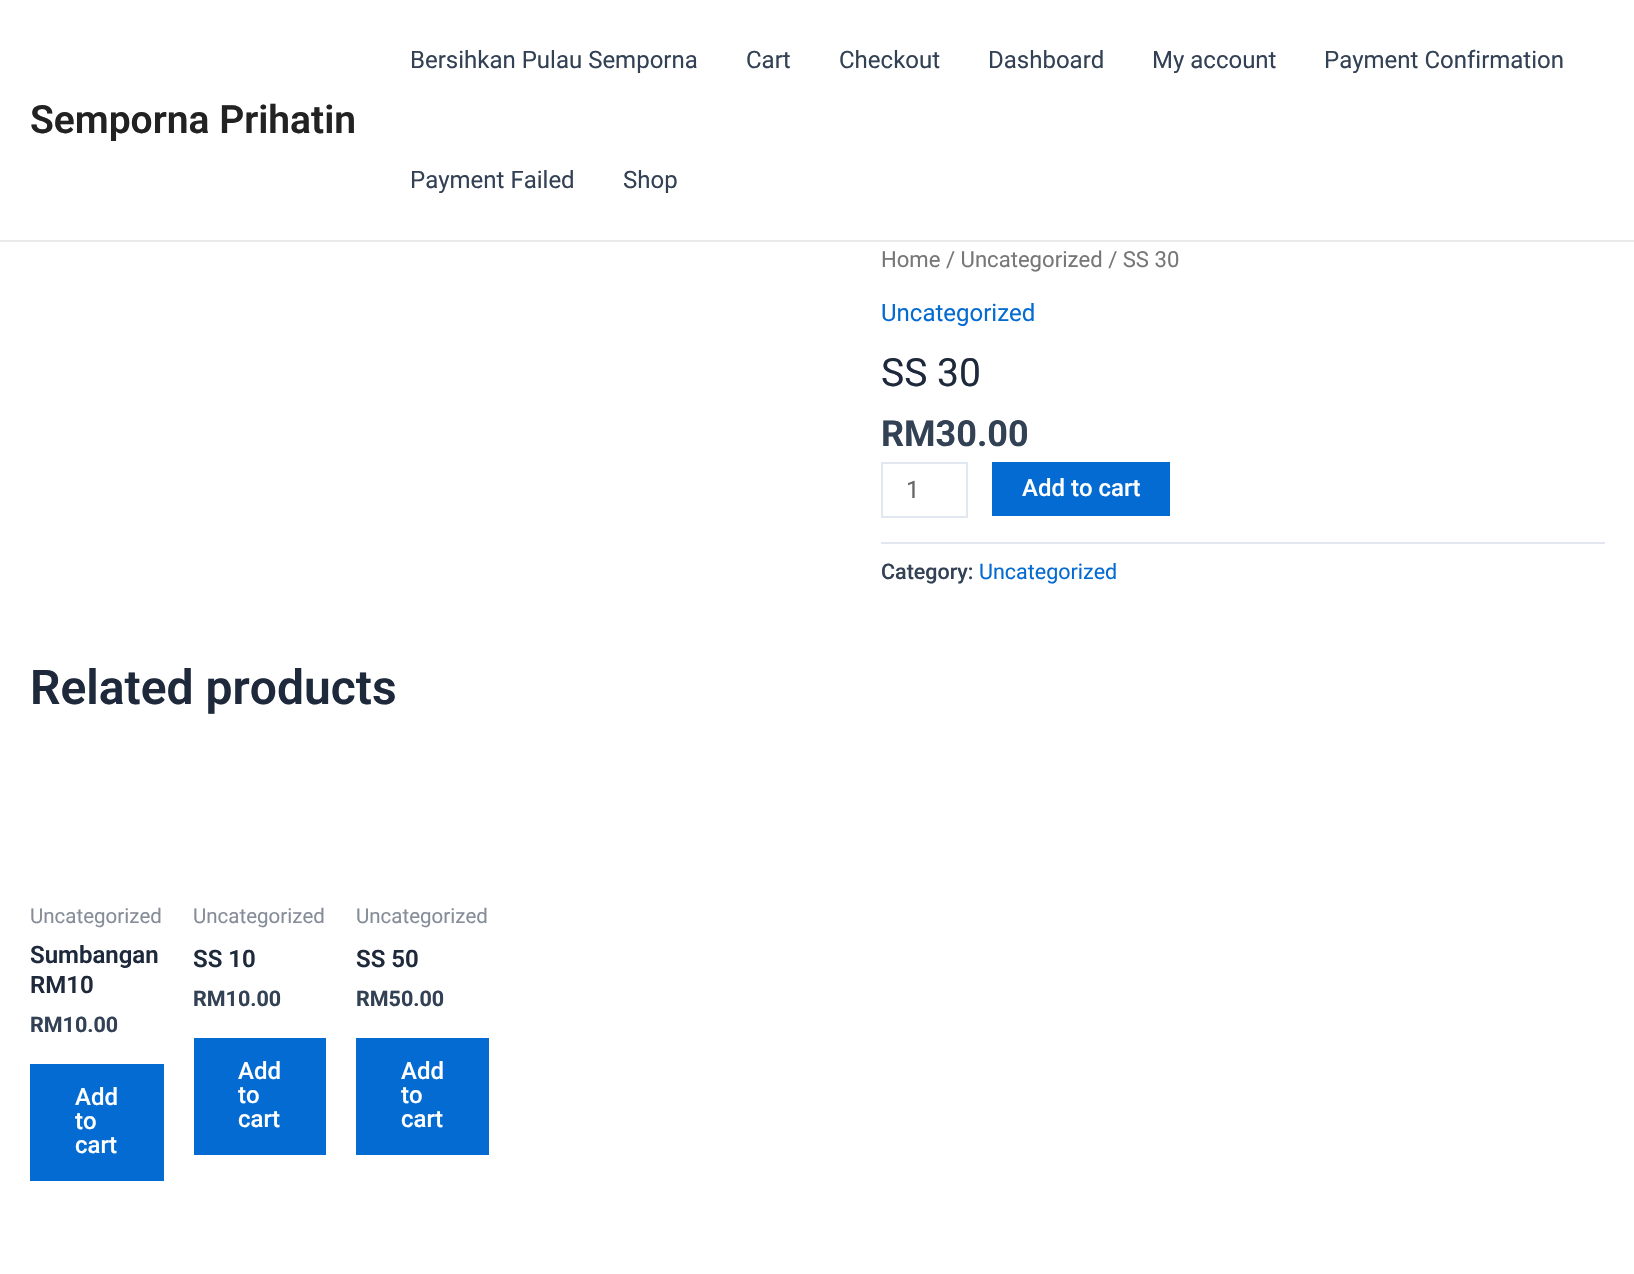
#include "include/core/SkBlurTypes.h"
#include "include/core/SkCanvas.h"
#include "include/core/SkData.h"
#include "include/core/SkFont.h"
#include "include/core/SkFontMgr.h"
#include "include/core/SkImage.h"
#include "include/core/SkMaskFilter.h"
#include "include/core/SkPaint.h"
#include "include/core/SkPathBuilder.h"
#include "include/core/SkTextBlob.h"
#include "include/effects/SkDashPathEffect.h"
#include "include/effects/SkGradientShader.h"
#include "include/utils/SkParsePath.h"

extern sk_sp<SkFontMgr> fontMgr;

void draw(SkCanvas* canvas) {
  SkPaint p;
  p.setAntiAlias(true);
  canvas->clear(SK_ColorWHITE);
  p.setColor(SkColorSetRGB(234, 234, 234));
  canvas->drawRect(SkRect::MakeLTRB(0, 240, 1634, 242), p);
  p.setStyle(SkPaint::kStroke_Style);
  p.setStrokeWidth(2);
  p.setColor(SkColorSetRGB(226, 232, 240));
  canvas->drawRect(SkRect::MakeLTRB(882, 463, 967, 517), p);
  p.setStyle(SkPaint::kFill_Style);
  p.setColor(SkColorSetRGB(4, 107, 210));
  canvas->drawRect(SkRect::MakeLTRB(992, 462, 1170, 516), p);
  p.setColor(SkColorSetRGB(226, 232, 240));
  canvas->drawRect(SkRect::MakeLTRB(881, 542, 1605, 544), p);
  p.setColor(SkColorSetRGB(4, 107, 210));
  canvas->drawRect(SkRect::MakeLTRB(30, 1064, 164, 1181), p);
  canvas->drawRect(SkRect::MakeLTRB(194, 1038, 326, 1155), p);
  canvas->drawRect(SkRect::MakeLTRB(356, 1038, 489, 1155), p);
  SkFont font1(fontMgr->matchFamilyStyle("Roboto", SkFontStyle(600, SkFontStyle::kNormal_Width, SkFontStyle::kUpright_Slant)), 39);
  font1.setSubpixel(true);
  p.setColor(SkColorSetRGB(34, 34, 34));
  canvas->drawString("Semporna Prihatin", 30, 133, font1, p);
  SkFont font2(fontMgr->matchFamilyStyle("Roboto", SkFontStyle::Normal()), 24);
  font2.setSubpixel(true);
  p.setColor(SkColorSetRGB(51, 65, 85));
  canvas->drawString("Bersihkan Pulau Semporna", 410, 68, font2, p);
  canvas->drawString("Cart", 746, 68, font2, p);
  canvas->drawString("Checkout", 839, 68, font2, p);
  canvas->drawString("Dashboard", 988, 68, font2, p);
  canvas->drawString("My account", 1152, 68, font2, p);
  canvas->drawString("Payment Confirmation", 1324, 68, font2, p);
  canvas->drawString("Payment Failed", 410, 188, font2, p);
  canvas->drawString("Shop", 623, 188, font2, p);
  SkFont font3(fontMgr->matchFamilyStyle("Roboto", SkFontStyle::Normal()), 22.1f);
  font3.setSubpixel(true);
  p.setColor(SkColorSetRGB(119, 119, 119));
  canvas->drawString("Home / Uncategorized / SS 30", 881, 267, font3, p);
  p.setColor(SkColorSetRGB(4, 107, 210));
  canvas->drawString("Uncategorized", 881, 321, font2, p);
  SkFont font4(fontMgr->matchFamilyStyle("Roboto", SkFontStyle::Normal()), 39);
  font4.setSubpixel(true);
  p.setColor(SkColorSetRGB(30, 41, 59));
  canvas->drawString("SS 30", 881, 386, font4, p);
  SkFont font5(fontMgr->matchFamilyStyle("Roboto", SkFontStyle::Bold()), 36);
  font5.setSubpixel(true);
  p.setColor(SkColorSetRGB(51, 65, 85));
  canvas->drawString("RM30.00", 881, 446, font5, p);
  p.setColor(SkColorSetRGB(102, 102, 102));
  canvas->drawString("1", 906, 498, font2, p);
  SkFont font6(fontMgr->matchFamilyStyle("Roboto", SkFontStyle(500, SkFontStyle::kNormal_Width, SkFontStyle::kUpright_Slant)), 24);
  font6.setSubpixel(true);
  p.setColor(SK_ColorWHITE);
  canvas->drawString("Add to cart", 1022, 496, font6, p);
  SkFont font7(fontMgr->matchFamilyStyle("Roboto", SkFontStyle(500, SkFontStyle::kNormal_Width, SkFontStyle::kUpright_Slant)), 21.5f);
  font7.setSubpixel(true);
  p.setColor(SkColorSetRGB(51, 65, 85));
  canvas->drawString("Category:", 881, 579, font7, p);
  SkFont font8(fontMgr->matchFamilyStyle("Roboto", SkFontStyle::Normal()), 21.5f);
  font8.setSubpixel(true);
  p.setColor(SkColorSetRGB(4, 107, 210));
  canvas->drawString("Uncategorized", 979, 579, font8, p);
  SkFont font9(fontMgr->matchFamilyStyle("Roboto", SkFontStyle(600, SkFontStyle::kNormal_Width, SkFontStyle::kUpright_Slant)), 48);
  font9.setSubpixel(true);
  p.setColor(SkColorSetRGB(30, 41, 59));
  canvas->drawString("Related products", 30, 704, font9, p);
  SkFont font10(fontMgr->matchFamilyStyle("Roboto", SkFontStyle::Normal()), 20.5f);
  font10.setSubpixel(true);
  p.setColor(SkColorSetRGB(133, 141, 153));
  canvas->drawString("Uncategorized", 30, 923, font10, p);
  SkFont font11(fontMgr->matchFamilyStyle("Roboto", SkFontStyle(600, SkFontStyle::kNormal_Width, SkFontStyle::kUpright_Slant)), 24);
  font11.setSubpixel(true);
  p.setColor(SkColorSetRGB(30, 41, 59));
  canvas->drawString("Sumbangan", 30, 963, font11, p);
  canvas->drawString("RM10", 30, 993, font11, p);
  SkFont font12(fontMgr->matchFamilyStyle("Roboto", SkFontStyle::Bold()), 21.5f);
  font12.setSubpixel(true);
  p.setColor(SkColorSetRGB(51, 65, 85));
  canvas->drawString("RM10.00", 30, 1032, font12, p);
  p.setColor(SK_ColorWHITE);
  canvas->drawString("Add", 75, 1105, font6, p);
  canvas->drawString("to", 75, 1129, font6, p);
  canvas->drawString("cart", 75, 1153, font6, p);
  p.setColor(SkColorSetRGB(133, 141, 153));
  canvas->drawString("Uncategorized", 193, 923, font10, p);
  p.setColor(SkColorSetRGB(30, 41, 59));
  canvas->drawString("SS 10", 193, 967, font11, p);
  p.setColor(SkColorSetRGB(51, 65, 85));
  canvas->drawString("RM10.00", 193, 1006, font12, p);
  p.setColor(SK_ColorWHITE);
  canvas->drawString("Add", 238, 1079, font6, p);
  canvas->drawString("to", 238, 1103, font6, p);
  canvas->drawString("cart", 238, 1127, font6, p);
  p.setColor(SkColorSetRGB(133, 141, 153));
  canvas->drawString("Uncategorized", 356, 923, font10, p);
  p.setColor(SkColorSetRGB(30, 41, 59));
  canvas->drawString("SS 50", 356, 967, font11, p);
  p.setColor(SkColorSetRGB(51, 65, 85));
  canvas->drawString("RM50.00", 356, 1006, font12, p);
  p.setColor(SK_ColorWHITE);
  canvas->drawString("Add", 401, 1079, font6, p);
  canvas->drawString("to", 401, 1103, font6, p);
  canvas->drawString("cart", 401, 1127, font6, p);
}
